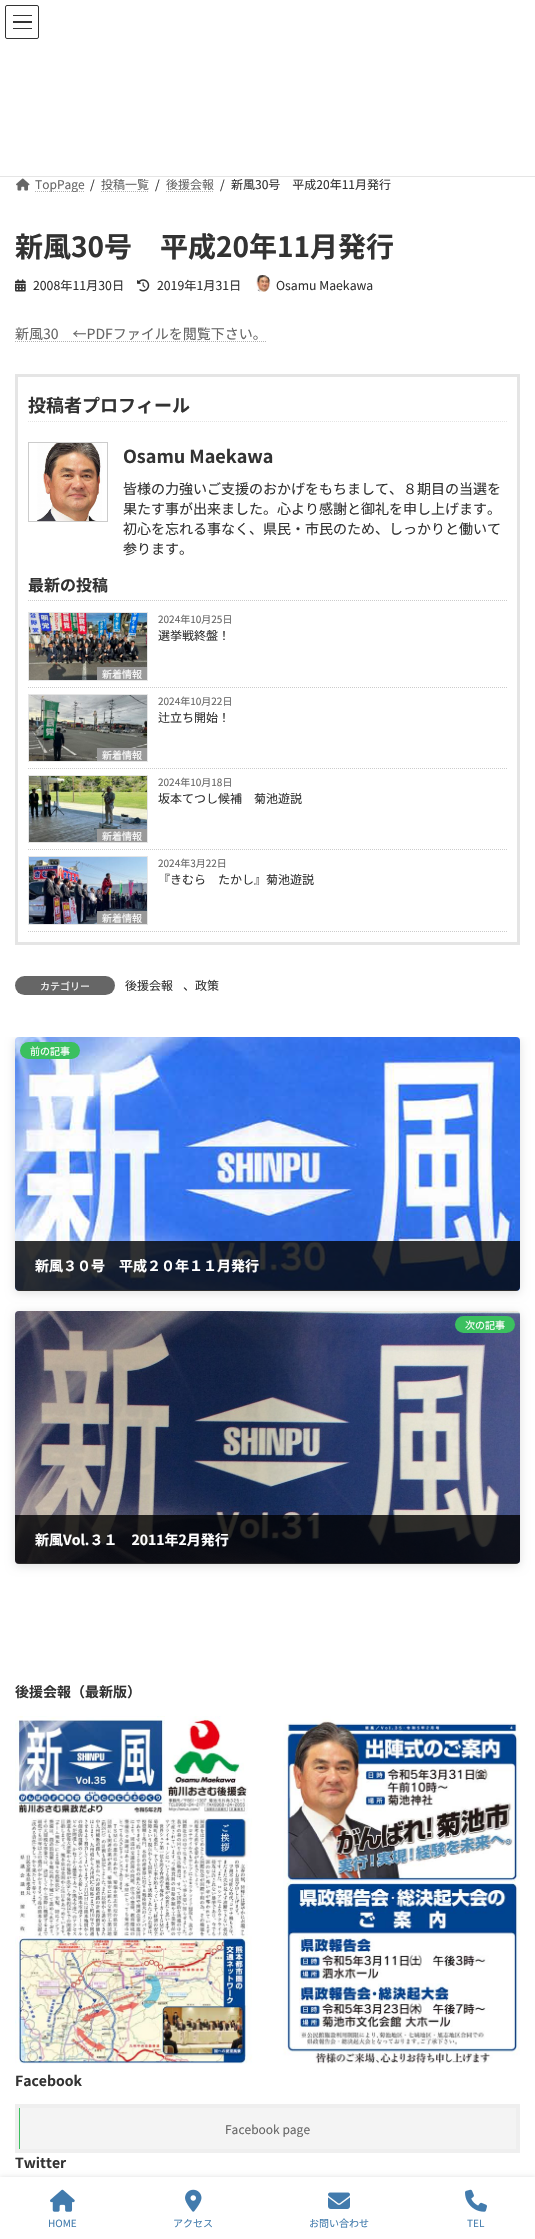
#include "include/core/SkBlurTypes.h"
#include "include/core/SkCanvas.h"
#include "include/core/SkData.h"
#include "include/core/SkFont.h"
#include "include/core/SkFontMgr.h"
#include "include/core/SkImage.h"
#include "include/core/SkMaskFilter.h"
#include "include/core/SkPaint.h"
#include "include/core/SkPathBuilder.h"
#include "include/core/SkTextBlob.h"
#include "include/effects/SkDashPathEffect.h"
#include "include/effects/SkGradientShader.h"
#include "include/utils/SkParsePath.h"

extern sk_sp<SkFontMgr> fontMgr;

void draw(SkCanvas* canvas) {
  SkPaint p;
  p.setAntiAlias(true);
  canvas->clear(SK_ColorWHITE);
  p.setColor(SkColorSetRGB(51, 51, 51));
  canvas->drawRect(SkRect::MakeLTRB(13, 15, 32, 16), p);
  canvas->drawRect(SkRect::MakeLTRB(13, 21, 32, 23), p);
  canvas->drawRect(SkRect::MakeLTRB(13, 28, 32, 29), p);
  p.setStyle(SkPaint::kStroke_Style);
  p.setStrokeWidth(1);
  canvas->drawRoundRect(SkRect::MakeLTRB(5.5f, 5.5f, 38.5f, 38.5f), 1.5f, 1.5f, p);
  p.setStyle(SkPaint::kFill_Style);
  p.setColor(SkColorSetRGB(229, 229, 229));
  canvas->drawRect(SkRect::MakeLTRB(0, 176, 535, 177), p);
  canvas->drawImageRect(SkImages::DeferredFromEncodedData(SkData::MakeFromFileName("images/1.png")), SkRect::MakeLTRB(16, 178, 30, 191), SkSamplingOptions());
  p.setStyle(SkPaint::kStroke_Style);
  p.setColor(SkColorSetRGB(179, 179, 179));
  p.setPathEffect(SkDashPathEffect::Make({{1, 1}}, 0));
  canvas->drawPath(SkPathBuilder().moveTo(35, 191.5f).lineTo(84.5f, 191.5f).detach(), p);
  p.setPathEffect(nullptr);
  p.setPathEffect(SkDashPathEffect::Make({{1, 1}}, 0));
  canvas->drawPath(SkPathBuilder().moveTo(101, 191.5f).lineTo(149, 191.5f).detach(), p);
  p.setPathEffect(nullptr);
  p.setPathEffect(SkDashPathEffect::Make({{1, 1}}, 0));
  canvas->drawPath(SkPathBuilder().moveTo(166, 191.5f).lineTo(214, 191.5f).detach(), p);
  p.setPathEffect(nullptr);
  canvas->drawImageRect(SkImages::DeferredFromEncodedData(SkData::MakeFromFileName("images/2.png")), SkRect::MakeLTRB(15, 279, 26, 292), SkSamplingOptions());
  canvas->drawImageRect(SkImages::DeferredFromEncodedData(SkData::MakeFromFileName("images/3.png")), SkRect::MakeLTRB(137, 279, 150, 292), SkSamplingOptions());
  canvas->drawImageRect(SkImages::DeferredFromEncodedData(SkData::MakeFromFileName("images/4.png")), SkRect::MakeLTRB(256, 275, 271, 292), SkSamplingOptions());
  p.setPathEffect(SkDashPathEffect::Make({{1, 1}}, 0));
  canvas->drawPath(SkPathBuilder().moveTo(15, 341.5f).lineTo(267, 341.5f).detach(), p);
  p.setPathEffect(nullptr);
  p.setStrokeWidth(3);
  p.setColor(SkColorSetRGB(229, 229, 229));
  canvas->drawRect(SkRect::MakeLTRB(16.5f, 375.5f, 518.5f, 943.5f), p);
  p.setStrokeWidth(1);
  p.setPathEffect(SkDashPathEffect::Make({{1, 1}}, 0));
  canvas->drawPath(SkPathBuilder().moveTo(28, 421.5f).lineTo(507, 421.5f).detach(), p);
  p.setPathEffect(nullptr);
  p.setColor(SkColorSetRGB(204, 204, 204));
  canvas->drawRect(SkRect::MakeLTRB(28.5f, 442.5f, 107.5f, 521.5f), p);
  canvas->drawImageRect(SkImages::DeferredFromEncodedData(SkData::MakeFromFileName("images/5.png")), SkRect::MakeLTRB(37, 443, 102, 521), SkSamplingOptions());
  p.setPathEffect(SkDashPathEffect::Make({{1, 1}}, 0));
  canvas->drawPath(SkPathBuilder().moveTo(28, 600.5f).lineTo(507, 600.5f).detach(), p);
  p.setPathEffect(nullptr);
  p.setPathEffect(SkDashPathEffect::Make({{1, 1}}, 0));
  canvas->drawPath(SkPathBuilder().moveTo(28, 687.5f).lineTo(507, 687.5f).detach(), p);
  p.setPathEffect(nullptr);
  p.setColor(SkColorSetRGB(230, 230, 230));
  canvas->drawRect(SkRect::MakeLTRB(28.5f, 612.5f, 147.5f, 680.5f), p);
  canvas->drawImageRect(SkImages::DeferredFromEncodedData(SkData::MakeFromFileName("images/6.png")), SkRect::MakeLTRB(29, 613, 147, 680), SkSamplingOptions());
  p.setStyle(SkPaint::kFill_Style);
  p.setColor(SkColorSetRGB(153, 153, 153));
  canvas->drawRect(SkRect::MakeLTRB(97, 667, 147, 680), p);
  p.setStyle(SkPaint::kStroke_Style);
  p.setColor(SkColorSetRGB(204, 204, 204));
  p.setPathEffect(SkDashPathEffect::Make({{1, 1}}, 0));
  canvas->drawPath(SkPathBuilder().moveTo(28, 768.5f).lineTo(507, 768.5f).detach(), p);
  p.setPathEffect(nullptr);
  p.setColor(SkColorSetRGB(230, 230, 230));
  canvas->drawRect(SkRect::MakeLTRB(28.5f, 694.5f, 147.5f, 761.5f), p);
  canvas->drawImageRect(SkImages::DeferredFromEncodedData(SkData::MakeFromFileName("images/7.png")), SkRect::MakeLTRB(29, 695, 147, 761), SkSamplingOptions());
  p.setStyle(SkPaint::kFill_Style);
  p.setColor(SkColorSetRGB(153, 153, 153));
  canvas->drawRect(SkRect::MakeLTRB(97, 748, 147, 761), p);
  p.setStyle(SkPaint::kStroke_Style);
  p.setColor(SkColorSetRGB(204, 204, 204));
  p.setPathEffect(SkDashPathEffect::Make({{1, 1}}, 0));
  canvas->drawPath(SkPathBuilder().moveTo(28, 849.5f).lineTo(507, 849.5f).detach(), p);
  p.setPathEffect(nullptr);
  p.setColor(SkColorSetRGB(230, 230, 230));
  canvas->drawRect(SkRect::MakeLTRB(28.5f, 775.5f, 147.5f, 842.5f), p);
  canvas->drawImageRect(SkImages::DeferredFromEncodedData(SkData::MakeFromFileName("images/8.png")), SkRect::MakeLTRB(29, 776, 147, 842), SkSamplingOptions());
  p.setStyle(SkPaint::kFill_Style);
  p.setColor(SkColorSetRGB(153, 153, 153));
  canvas->drawRect(SkRect::MakeLTRB(97, 829, 147, 842), p);
  p.setStyle(SkPaint::kStroke_Style);
  p.setColor(SkColorSetRGB(204, 204, 204));
  p.setPathEffect(SkDashPathEffect::Make({{1, 1}}, 0));
  canvas->drawPath(SkPathBuilder().moveTo(28, 931.5f).lineTo(507, 931.5f).detach(), p);
  p.setPathEffect(nullptr);
  p.setColor(SkColorSetRGB(230, 230, 230));
  canvas->drawRect(SkRect::MakeLTRB(28.5f, 856.5f, 147.5f, 924.5f), p);
  canvas->drawImageRect(SkImages::DeferredFromEncodedData(SkData::MakeFromFileName("images/9.png")), SkRect::MakeLTRB(29, 857, 147, 924), SkSamplingOptions());
  p.setStyle(SkPaint::kFill_Style);
  p.setColor(SkColorSetRGB(153, 153, 153));
  canvas->drawRect(SkRect::MakeLTRB(97, 911, 147, 924), p);
  p.setColor(SkColorSetRGB(102, 102, 102));
  canvas->drawRoundRect(SkRect::MakeLTRB(15, 976, 115, 995), 9.5f, 9.5f, p);
  canvas->save();
  canvas->clipRect(SkRect::MakeLTRB(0, 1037, 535, 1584));
  p.setColor(SkColorSetARGB(31, 0, 0, 0));
  p.setMaskFilter(SkMaskFilter::MakeBlur(kNormal_SkBlurStyle, 5));
  canvas->drawRoundRect(SkRect::MakeLTRB(15, 1039, 520, 1293), 4, 4, p);
  p.setMaskFilter(nullptr);
  canvas->restore();
  canvas->drawImageRect(SkImages::DeferredFromEncodedData(SkData::MakeFromFileName("images/10.png")), SkRect::MakeLTRB(15, 1037, 520, 1291), SkSamplingOptions());
  canvas->save();
  canvas->clipPath(SkPathBuilder().moveTo(19, 1037).lineTo(516, 1037).cubicTo(518, 1037, 520, 1039, 520, 1041).lineTo(520, 1287).cubicTo(520, 1289, 518, 1291, 516, 1291).lineTo(19, 1291).cubicTo(17, 1291, 15, 1289, 15, 1287).lineTo(15, 1041).cubicTo(15, 1039, 17, 1037, 19, 1037).close().detach(), true);
  p.setColor(SkColorSetRGB(229, 229, 229));
  canvas->drawRect(SkRect::MakeLTRB(15, 1290, 520, 1291), p);
  canvas->restore();
  p.setColor(SkColorSetRGB(59, 192, 95));
  canvas->drawRoundRect(SkRect::MakeLTRB(20, 1042, 80, 1059), 8.5f, 8.5f, p);
  p.setColor(SkColorSetARGB(204, 0, 0, 0));
  canvas->drawPath(SkPathBuilder().moveTo(15, 1241).lineTo(520, 1241).lineTo(520, 1287).cubicTo(520, 1289, 518, 1291, 516, 1291).lineTo(19, 1291).cubicTo(17, 1291, 15, 1289, 15, 1287).close().detach(), p);
  p.setColor(SkColorSetARGB(31, 0, 0, 0));
  p.setMaskFilter(SkMaskFilter::MakeBlur(kNormal_SkBlurStyle, 5));
  canvas->drawRoundRect(SkRect::MakeLTRB(15, 1313, 520, 1566), 4, 4, p);
  p.setMaskFilter(nullptr);
  canvas->drawImageRect(SkImages::DeferredFromEncodedData(SkData::MakeFromFileName("images/11.png")), SkRect::MakeLTRB(15, 1311, 520, 1564), SkSamplingOptions());
  canvas->save();
  canvas->clipPath(SkPathBuilder().moveTo(19, 1311).lineTo(516, 1311).cubicTo(518, 1311, 520, 1313, 520, 1315).lineTo(520, 1560).cubicTo(520, 1562, 518, 1564, 516, 1564).lineTo(19, 1564).cubicTo(17, 1564, 15, 1562, 15, 1560).lineTo(15, 1315).cubicTo(15, 1313, 17, 1311, 19, 1311).close().detach(), true);
  p.setColor(SkColorSetRGB(229, 229, 229));
  canvas->drawRect(SkRect::MakeLTRB(15, 1563, 520, 1564), p);
  canvas->restore();
  p.setColor(SkColorSetRGB(59, 192, 95));
  canvas->drawRoundRect(SkRect::MakeLTRB(455, 1316, 515, 1333), 8.5f, 8.5f, p);
  p.setColor(SkColorSetARGB(204, 0, 0, 0));
  canvas->drawPath(SkPathBuilder().moveTo(15, 1515).lineTo(520, 1515).lineTo(520, 1560).cubicTo(520, 1562, 518, 1564, 516, 1564).lineTo(19, 1564).cubicTo(17, 1564, 15, 1562, 15, 1560).close().detach(), p);
  canvas->drawImageRect(SkImages::DeferredFromEncodedData(SkData::MakeFromFileName("images/12.png")), SkRect::MakeLTRB(15, 1716, 520, 2064), SkSamplingOptions());
  p.setStyle(SkPaint::kStroke_Style);
  p.setStrokeWidth(4);
  p.setColor(SkColorSetRGB(239, 239, 239));
  canvas->drawRect(SkRect::MakeLTRB(17, 2106, 518, 2151), p);
  p.setStyle(SkPaint::kFill_Style);
  p.setColor(SkColorSetRGB(244, 244, 244));
  canvas->drawRect(SkRect::MakeLTRB(20, 2108, 516, 2149), p);
  p.setColor(SkColorSetRGB(59, 192, 95));
  canvas->drawRect(SkRect::MakeLTRB(19, 2108, 20, 2149), p);
  p.setColor(SkColorSetARGB(31, 0, 0, 0));
  p.setMaskFilter(SkMaskFilter::MakeBlur(kNormal_SkBlurStyle, 2.5f));
  canvas->drawRect(SkRect::MakeLTRB(0, 2177, 535, 2239), p);
  p.setMaskFilter(nullptr);
  p.setColor(SK_ColorWHITE);
  canvas->drawRect(SkRect::MakeLTRB(0, 2177, 535, 2239), p);
  canvas->drawImageRect(SkImages::DeferredFromEncodedData(SkData::MakeFromFileName("images/13.png")), SkRect::MakeLTRB(50, 2189, 75, 2212), SkSamplingOptions());
  canvas->drawImageRect(SkImages::DeferredFromEncodedData(SkData::MakeFromFileName("images/14.png")), SkRect::MakeLTRB(185, 2189, 202, 2212), SkSamplingOptions());
  canvas->drawImageRect(SkImages::DeferredFromEncodedData(SkData::MakeFromFileName("images/15.png")), SkRect::MakeLTRB(328, 2192, 350, 2209), SkSamplingOptions());
  canvas->drawImageRect(SkImages::DeferredFromEncodedData(SkData::MakeFromFileName("images/16.png")), SkRect::MakeLTRB(465, 2189, 487, 2212), SkSamplingOptions());
  SkFont font1(fontMgr->matchFamilyStyle("Noto Sans JP", SkFontStyle::Normal()), 12);
  font1.setSubpixel(true);
  p.setColor(SkColorSetRGB(102, 102, 102));
  canvas->drawString("TopPage", 35, 189, font1, p);
  p.setColor(SkColorSetRGB(51, 51, 51));
  canvas->drawString("/", 90, 189, font1, p);
  p.setColor(SkColorSetRGB(102, 102, 102));
  canvas->drawString("投稿一覧", 101, 189, font1, p);
  p.setColor(SkColorSetRGB(51, 51, 51));
  canvas->drawString("/", 155, 189, font1, p);
  p.setColor(SkColorSetRGB(102, 102, 102));
  canvas->drawString("後援会報", 166, 189, font1, p);
  p.setColor(SkColorSetRGB(51, 51, 51));
  canvas->drawString("/", 220, 189, font1, p);
  canvas->drawString("新風30号　平成20年11月発行", 231, 189, font1, p);
  SkFont font2(fontMgr->matchFamilyStyle("Noto Sans JP", SkFontStyle::Bold()), 28);
  font2.setSubpixel(true);
  canvas->drawString("新風30号　平成20年11月発行", 15, 257, font2, p);
  SkFont font3(fontMgr->matchFamilyStyle("Noto Sans JP", SkFontStyle::Normal()), 12.25f);
  font3.setSubpixel(true);
  canvas->drawString("2008年11月30日", 33, 290, font3, p);
  canvas->drawString("2019年1月31日", 157, 290, font3, p);
  canvas->drawString("Osamu Maekawa", 276, 290, font3, p);
  SkFont font4(fontMgr->matchFamilyStyle("Noto Sans JP", SkFontStyle::Normal()), 14);
  font4.setSubpixel(true);
  p.setColor(SkColorSetRGB(102, 102, 102));
  canvas->drawString("新風30　←PDFファイルを閲覧下さい。", 15, 339, font4, p);
  SkFont font5(fontMgr->matchFamilyStyle("Noto Sans JP", SkFontStyle::Bold()), 18);
  font5.setSubpixel(true);
  p.setColor(SkColorSetRGB(51, 51, 51));
  canvas->drawString("投稿者プロフィール", 28, 412, font5, p);
  canvas->drawString("Osamu Maekawa", 123, 463, font5, p);
  canvas->drawString("皆様の力強いご支援のおかげをもちまして、８期目の当選を", 123, 494, font4, p);
  canvas->drawString("果たす事が出来ました。心より感謝と御礼を申し上げます。", 123, 514, font4, p);
  canvas->drawString("初心を忘れる事なく、県民・市民のため、しっかりと働いて", 123, 534, font4, p);
  canvas->drawString("参ります。", 123, 554, font4, p);
  SkFont font6(fontMgr->matchFamilyStyle("Noto Sans JP", SkFontStyle::Bold()), 16);
  font6.setSubpixel(true);
  canvas->drawString("最新の投稿", 28, 591, font6, p);
  SkFont font7(fontMgr->matchFamilyStyle("Noto Sans JP", SkFontStyle::Normal()), 10);
  font7.setSubpixel(true);
  p.setColor(SkColorSetRGB(102, 102, 102));
  canvas->drawString("2024年10月25日", 158, 623, font7, p);
  p.setColor(SkColorSetRGB(51, 51, 51));
  canvas->drawString("選挙戦終盤！", 158, 640, font1, p);
  p.setColor(SK_ColorWHITE);
  canvas->drawString("新着情報", 102, 678, font7, p);
  p.setColor(SkColorSetRGB(102, 102, 102));
  canvas->drawString("2024年10月22日", 158, 705, font7, p);
  p.setColor(SkColorSetRGB(51, 51, 51));
  canvas->drawString("辻立ち開始！", 158, 722, font1, p);
  p.setColor(SK_ColorWHITE);
  canvas->drawString("新着情報", 102, 759, font7, p);
  p.setColor(SkColorSetRGB(102, 102, 102));
  canvas->drawString("2024年10月18日", 158, 786, font7, p);
  p.setColor(SkColorSetRGB(51, 51, 51));
  canvas->drawString("坂本てつし候補　菊池遊説", 158, 803, font1, p);
  p.setColor(SK_ColorWHITE);
  canvas->drawString("新着情報", 102, 840, font7, p);
  p.setColor(SkColorSetRGB(102, 102, 102));
  canvas->drawString("2024年3月22日", 158, 867, font7, p);
  p.setColor(SkColorSetRGB(51, 51, 51));
  canvas->drawString("『きむら　たかし』菊池遊説", 158, 884, font1, p);
  p.setColor(SK_ColorWHITE);
  canvas->drawString("新着情報", 102, 922, font7, p);
  canvas->drawString("カテゴリー", 40, 990, font7, p);
  p.setColor(SkColorSetRGB(51, 51, 51));
  canvas->drawString("後援会報", 125, 990, font1, p);
  canvas->drawString("、政策", 183, 990, font1, p);
  p.setColor(SK_ColorWHITE);
  canvas->drawString("前の記事", 30, 1055, font7, p);
  SkFont font8(fontMgr->matchFamilyStyle("Noto Sans JP", SkFontStyle::Bold()), 14);
  font8.setSubpixel(true);
  canvas->drawString("新風３０号　平成２０年１１月発行", 35, 1271, font8, p);
  canvas->drawString("次の記事", 465, 1329, font7, p);
  canvas->drawString("新風Vol.３１　2011年2月発行", 35, 1545, font8, p);
  p.setColor(SkColorSetRGB(51, 51, 51));
  canvas->drawString("後援会報（最新版）", 15, 1697, font8, p);
  canvas->drawString("Facebook", 15, 2086, font8, p);
  p.setColor(SkColorSetRGB(102, 102, 102));
  canvas->drawString("Facebook page", 225, 2134, font1, p);
  p.setColor(SkColorSetRGB(51, 51, 51));
  canvas->drawString("Twitter", 15, 2168, font8, p);
  p.setColor(SkColorSetRGB(67, 124, 173));
  canvas->drawString("HOME", 48, 2227, font7, p);
  canvas->drawString("アクセス", 173, 2227, font7, p);
  canvas->drawString("お問い合わせ", 309, 2227, font7, p);
  canvas->drawString("TEL", 467, 2227, font7, p);
}
